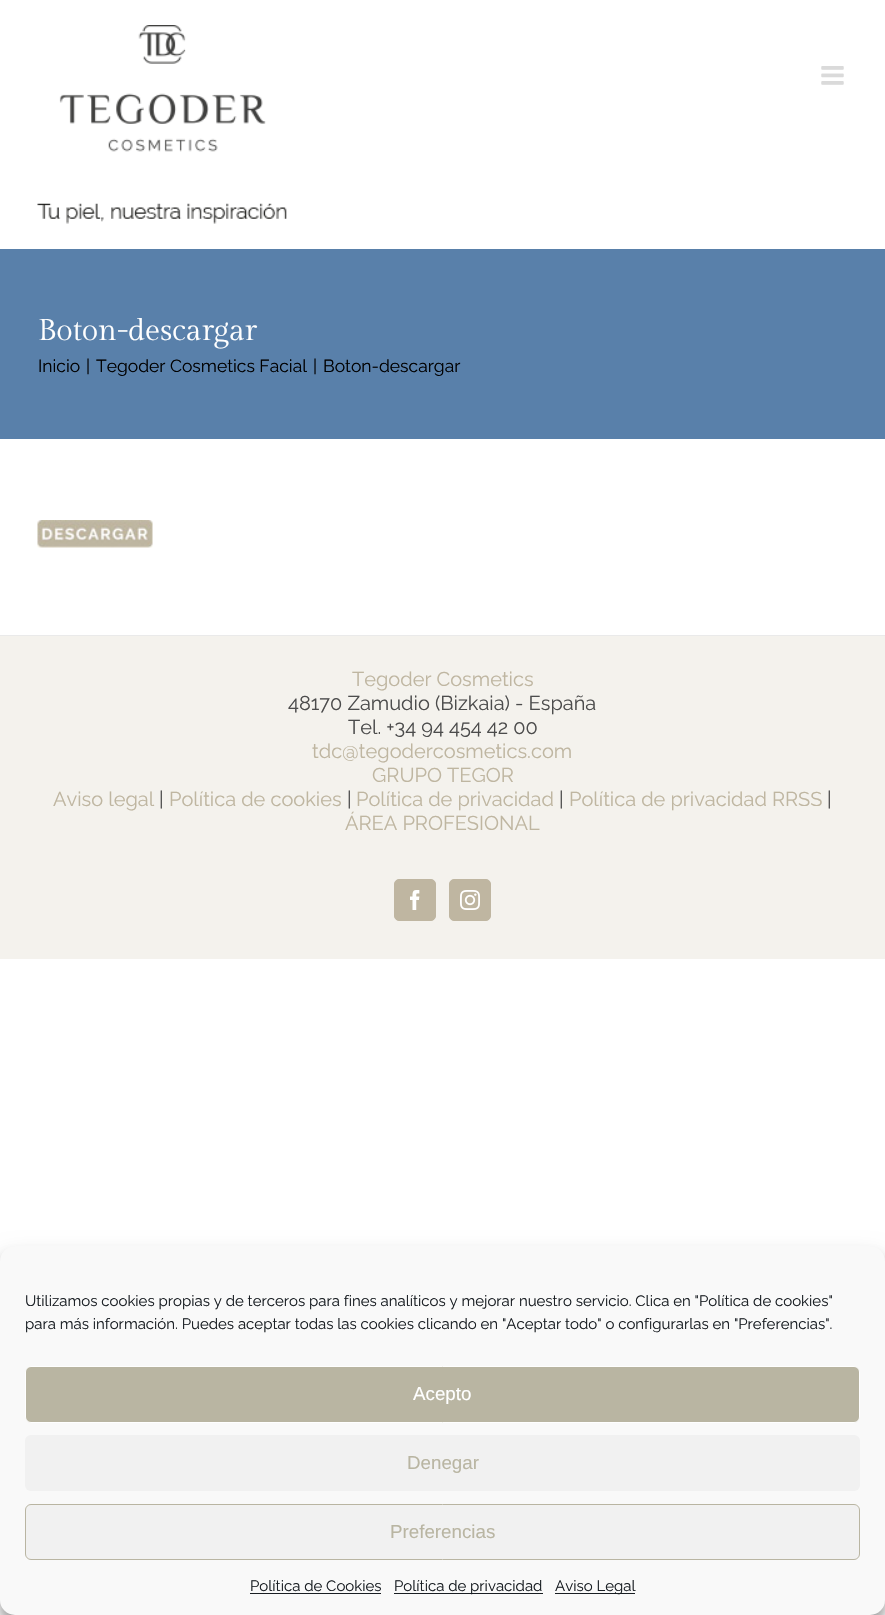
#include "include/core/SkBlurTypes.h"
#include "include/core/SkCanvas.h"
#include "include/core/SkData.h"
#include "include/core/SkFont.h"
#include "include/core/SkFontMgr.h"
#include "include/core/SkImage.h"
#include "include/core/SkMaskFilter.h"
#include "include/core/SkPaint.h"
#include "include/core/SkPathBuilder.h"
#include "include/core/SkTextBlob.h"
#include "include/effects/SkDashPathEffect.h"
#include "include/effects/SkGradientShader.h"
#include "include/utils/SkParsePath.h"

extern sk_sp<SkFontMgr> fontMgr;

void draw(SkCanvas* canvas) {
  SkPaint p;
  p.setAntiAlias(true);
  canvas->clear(SK_ColorWHITE);
  canvas->drawImageRect(SkImages::DeferredFromEncodedData(SkData::MakeFromFileName("images/1.png")), SkRect::MakeLTRB(37, 25, 287, 224), SkSamplingOptions());
  canvas->drawImageRect(SkImages::DeferredFromEncodedData(SkData::MakeFromFileName("images/2.png")), SkRect::MakeLTRB(821, 66, 844, 85), SkSamplingOptions());
  p.setColor(SkColorSetRGB(89, 128, 170));
  canvas->drawRect(SkRect::MakeLTRB(0, 249, 885, 439), p);
  canvas->drawImageRect(SkImages::DeferredFromEncodedData(SkData::MakeFromFileName("images/3.png")), SkRect::MakeLTRB(37, 520, 153, 548), SkSamplingOptions());
  p.setColor(SkColorSetRGB(244, 242, 237));
  canvas->drawRect(SkRect::MakeLTRB(0, 636, 885, 959), p);
  p.setColor(SkColorSetRGB(234, 234, 234));
  canvas->drawRect(SkRect::MakeLTRB(0, 635, 885, 636), p);
  p.setColor(SkColorSetRGB(191, 182, 161));
  canvas->drawRoundRect(SkRect::MakeLTRB(394.5f, 879.5f, 435.5f, 920.5f), 4.5f, 4.5f, p);
  p.setStyle(SkPaint::kStroke_Style);
  p.setStrokeWidth(1);
  canvas->drawRoundRect(SkRect::MakeLTRB(394.5f, 879.5f, 435.5f, 920.5f), 4.5f, 4.5f, p);
  canvas->drawImageRect(SkImages::DeferredFromEncodedData(SkData::MakeFromFileName("images/4.png")), SkRect::MakeLTRB(410, 890, 420, 910), SkSamplingOptions());
  p.setStyle(SkPaint::kFill_Style);
  canvas->drawRoundRect(SkRect::MakeLTRB(449.5f, 879.5f, 490.5f, 920.5f), 4.5f, 4.5f, p);
  p.setStyle(SkPaint::kStroke_Style);
  canvas->drawRoundRect(SkRect::MakeLTRB(449.5f, 879.5f, 490.5f, 920.5f), 4.5f, 4.5f, p);
  canvas->drawImageRect(SkImages::DeferredFromEncodedData(SkData::MakeFromFileName("images/5.png")), SkRect::MakeLTRB(460, 890, 480, 910), SkSamplingOptions());
  p.setStyle(SkPaint::kFill_Style);
  p.setColor(SkColorSetARGB(59, 0, 0, 0));
  p.setMaskFilter(SkMaskFilter::MakeBlur(kNormal_SkBlurStyle, 4));
  canvas->drawRoundRect(SkRect::MakeLTRB(0, 1254, 885, 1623), 15, 15, p);
  p.setMaskFilter(nullptr);
  p.setColor(SkColorSetARGB(48, 0, 0, 0));
  p.setMaskFilter(SkMaskFilter::MakeBlur(kNormal_SkBlurStyle, 12.5f));
  canvas->drawRoundRect(SkRect::MakeLTRB(0, 1259, 885, 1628), 15, 15, p);
  p.setMaskFilter(nullptr);
  p.setColor(SkColorSetRGB(249, 249, 249));
  canvas->drawRoundRect(SkRect::MakeLTRB(0, 1246, 885, 1615), 15, 15, p);
  p.setColor(SkColorSetRGB(185, 181, 162));
  canvas->drawRoundRect(SkRect::MakeLTRB(25.5f, 1366.5f, 859.5f, 1422.5f), 5.5f, 5.5f, p);
  p.setStyle(SkPaint::kStroke_Style);
  p.setColor(SK_ColorWHITE);
  canvas->drawRoundRect(SkRect::MakeLTRB(25.5f, 1366.5f, 859.5f, 1422.5f), 5.5f, 5.5f, p);
  p.setStyle(SkPaint::kFill_Style);
  p.setColor(SkColorSetRGB(241, 241, 241));
  canvas->drawRoundRect(SkRect::MakeLTRB(25, 1435, 860, 1491), 6, 6, p);
  canvas->drawRoundRect(SkRect::MakeLTRB(25.5f, 1504.5f, 859.5f, 1559.5f), 5.5f, 5.5f, p);
  p.setStyle(SkPaint::kStroke_Style);
  p.setColor(SkColorSetRGB(185, 181, 162));
  canvas->drawRoundRect(SkRect::MakeLTRB(25.5f, 1504.5f, 859.5f, 1559.5f), 5.5f, 5.5f, p);
  p.setStyle(SkPaint::kFill_Style);
  p.setColor(SkColorSetRGB(25, 30, 35));
  canvas->drawRect(SkRect::MakeLTRB(250, 1593, 381, 1594), p);
  canvas->drawRect(SkRect::MakeLTRB(394, 1593, 543, 1594), p);
  canvas->drawRect(SkRect::MakeLTRB(555, 1593, 635, 1594), p);
  SkFont font1(fontMgr->matchFamilyStyle("Gilda Display", SkFontStyle::Normal()), 30);
  font1.setSubpixel(true);
  p.setColor(SK_ColorWHITE);
  canvas->drawString("Boton-descargar", 38, 340, font1, p);
  SkFont font2(fontMgr->matchFamilyStyle("Raleway", SkFontStyle::Normal()), 17.5f);
  font2.setSubpixel(true);
  p.setColor(SK_ColorBLACK);
  canvas->drawString("Inicio", 38, 372, font2, p);
  canvas->drawString("|", 86, 372, font2, p);
  canvas->drawString("Tegoder Cosmetics Facial", 96, 372, font2, p);
  canvas->drawString("|", 313, 372, font2, p);
  canvas->drawString("Boton-descargar", 323, 372, font2, p);
  SkFont font3(fontMgr->matchFamilyStyle("Raleway", SkFontStyle::Normal()), 20);
  font3.setSubpixel(true);
  p.setColor(SkColorSetRGB(191, 182, 161));
  canvas->drawString("Tegoder Cosmetics", 352, 686, font3, p);
  p.setColor(SkColorSetRGB(76, 76, 76));
  canvas->drawString("48170 Zamudio (Bizkaia) - España", 288, 710, font3, p);
  canvas->drawString("Tel. +34 94 454 42 00", 348, 734, font3, p);
  p.setColor(SkColorSetRGB(191, 182, 161));
  canvas->drawString("tdc@tegodercosmetics.com", 312, 758, font3, p);
  canvas->drawString("GRUPO TEGOR", 372, 782, font3, p);
  canvas->drawString("Aviso legal", 53, 806, font3, p);
  p.setColor(SkColorSetRGB(76, 76, 76));
  canvas->drawString("|", 159, 806, font3, p);
  p.setColor(SkColorSetRGB(191, 182, 161));
  canvas->drawString("Política de cookies", 169, 806, font3, p);
  p.setColor(SkColorSetRGB(76, 76, 76));
  canvas->drawString("|", 347, 806, font3, p);
  p.setColor(SkColorSetRGB(191, 182, 161));
  canvas->drawString("Política de privacidad", 356, 806, font3, p);
  p.setColor(SkColorSetRGB(76, 76, 76));
  canvas->drawString("|", 559, 806, font3, p);
  p.setColor(SkColorSetRGB(191, 182, 161));
  canvas->drawString("Política de privacidad RRSS", 569, 806, font3, p);
  p.setColor(SkColorSetRGB(76, 76, 76));
  canvas->drawString("|", 827, 806, font3, p);
  p.setColor(SkColorSetRGB(191, 182, 161));
  canvas->drawString("ÁREA PROFESIONAL", 345, 830, font3, p);
  SkFont font4(fontMgr->matchFamilyStyle("Raleway", SkFontStyle::Normal()), 15);
  font4.setSubpixel(true);
  p.setColor(SkColorSetRGB(25, 30, 35));
  canvas->drawString("Utilizamos cookies propias y de terceros para fines analíticos y mejorar nuestro servicio. Clica en \"Política de cookies\"", 25, 1306, font4, p);
  canvas->drawString("para más información. Puedes aceptar todas las cookies clicando en \"Aceptar todo\" o configurarlas en \"Preferencias\".", 25, 1329, font4, p);
  SkFont font5(fontMgr->matchFamilyStyle("Liberation Sans", SkFontStyle::Normal()), 18.75f);
  font5.setSubpixel(true);
  p.setColor(SK_ColorWHITE);
  canvas->drawString("Acepto", 413, 1400, font5, p);
  p.setColor(SkColorSetRGB(185, 181, 162));
  canvas->drawString("Denegar", 407, 1469, font5, p);
  canvas->drawString("Preferencias", 390, 1538, font5, p);
  p.setColor(SkColorSetRGB(25, 30, 35));
  canvas->drawString("Política de Cookies", 250, 1591, font4, p);
  canvas->drawString("Política de privacidad", 394, 1591, font4, p);
  canvas->drawString("Aviso Legal", 555, 1591, font4, p);
}
